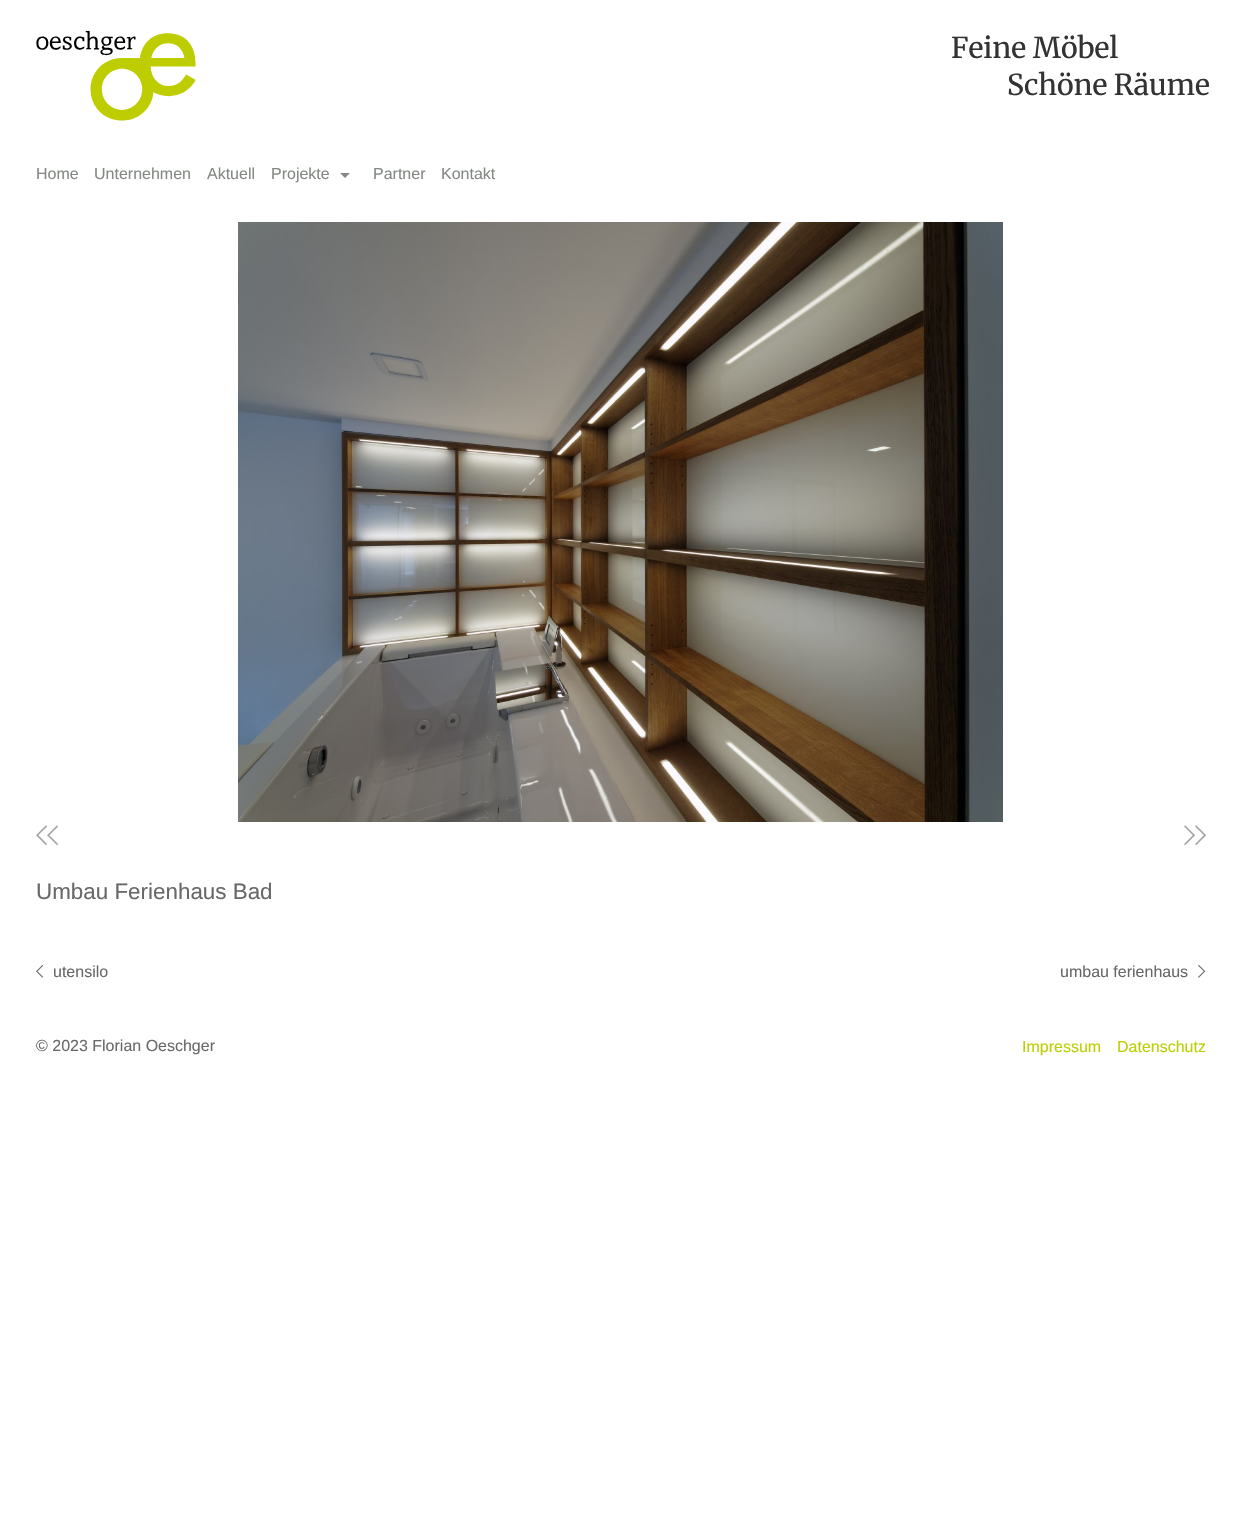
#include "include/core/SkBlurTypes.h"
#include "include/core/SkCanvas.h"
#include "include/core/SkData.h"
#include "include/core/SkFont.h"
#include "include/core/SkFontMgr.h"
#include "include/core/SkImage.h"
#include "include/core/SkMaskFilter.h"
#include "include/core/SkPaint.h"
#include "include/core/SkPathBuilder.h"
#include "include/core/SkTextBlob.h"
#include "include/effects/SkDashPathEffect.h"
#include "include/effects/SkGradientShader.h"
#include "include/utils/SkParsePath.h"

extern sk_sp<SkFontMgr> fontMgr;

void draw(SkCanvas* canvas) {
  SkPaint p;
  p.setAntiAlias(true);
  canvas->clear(SK_ColorWHITE);
  canvas->drawImageRect(SkImages::DeferredFromEncodedData(SkData::MakeFromFileName("images/1.png")), SkRect::MakeLTRB(36, 30, 196, 121), SkSamplingOptions());
  p.setColor(SkColorSetRGB(132, 137, 132));
  canvas->drawPath(SkPathBuilder().moveTo(340, 173).lineTo(350, 173).lineTo(345, 178).close().detach(), p);
  canvas->drawImageRect(SkImages::DeferredFromEncodedData(SkData::MakeFromFileName("images/2.png")), SkRect::MakeLTRB(238, 222, 1003, 822), SkSamplingOptions());
  canvas->drawImageRect(SkImages::DeferredFromEncodedData(SkData::MakeFromFileName("images/3.png")), SkRect::MakeLTRB(36, 825, 58, 845), SkSamplingOptions());
  canvas->drawImageRect(SkImages::DeferredFromEncodedData(SkData::MakeFromFileName("images/4.png")), SkRect::MakeLTRB(1184, 825, 1206, 846), SkSamplingOptions());
  canvas->drawImageRect(SkImages::DeferredFromEncodedData(SkData::MakeFromFileName("images/5.png")), SkRect::MakeLTRB(36, 964, 44, 978), SkSamplingOptions());
  canvas->drawImageRect(SkImages::DeferredFromEncodedData(SkData::MakeFromFileName("images/6.png")), SkRect::MakeLTRB(1198, 964, 1206, 978), SkSamplingOptions());
  SkFont font1(fontMgr->matchFamilyStyle("Merriweather", SkFontStyle::Normal()), 28.75f);
  font1.setSubpixel(true);
  p.setColor(SkColorSetRGB(51, 51, 51));
  canvas->drawString("Feine Möbel", 951, 58, font1, p);
  canvas->drawString("Schöne Räume", 1007, 95, font1, p);
  SkFont font2(fontMgr->matchFamilyStyle("Liberation Sans", SkFontStyle::Normal()), 16);
  font2.setSubpixel(true);
  p.setColor(SkColorSetRGB(132, 137, 132));
  canvas->drawString("Home", 36, 179, font2, p);
  canvas->drawString("Unternehmen", 94, 179, font2, p);
  canvas->drawString("Aktuell", 207, 179, font2, p);
  canvas->drawString("Projekte", 271, 179, font2, p);
  canvas->drawString("Partner", 373, 179, font2, p);
  canvas->drawString("Kontakt", 441, 179, font2, p);
  SkFont font3(fontMgr->matchFamilyStyle("Liberation Sans", SkFontStyle::Normal()), 22.4f);
  font3.setSubpixel(true);
  p.setColor(SkColorSetRGB(104, 104, 104));
  canvas->drawString("Umbau Ferienhaus Bad", 36, 899, font3, p);
  canvas->drawString("utensilo", 53, 977, font2, p);
  canvas->drawString("umbau ferienhaus", 1060, 977, font2, p);
  canvas->drawString("© 2023 Florian Oeschger", 36, 1051, font2, p);
  p.setColor(SkColorSetRGB(188, 207, 2));
  canvas->drawString("Impressum", 1022, 1052, font2, p);
  canvas->drawString("Datenschutz", 1117, 1052, font2, p);
}
